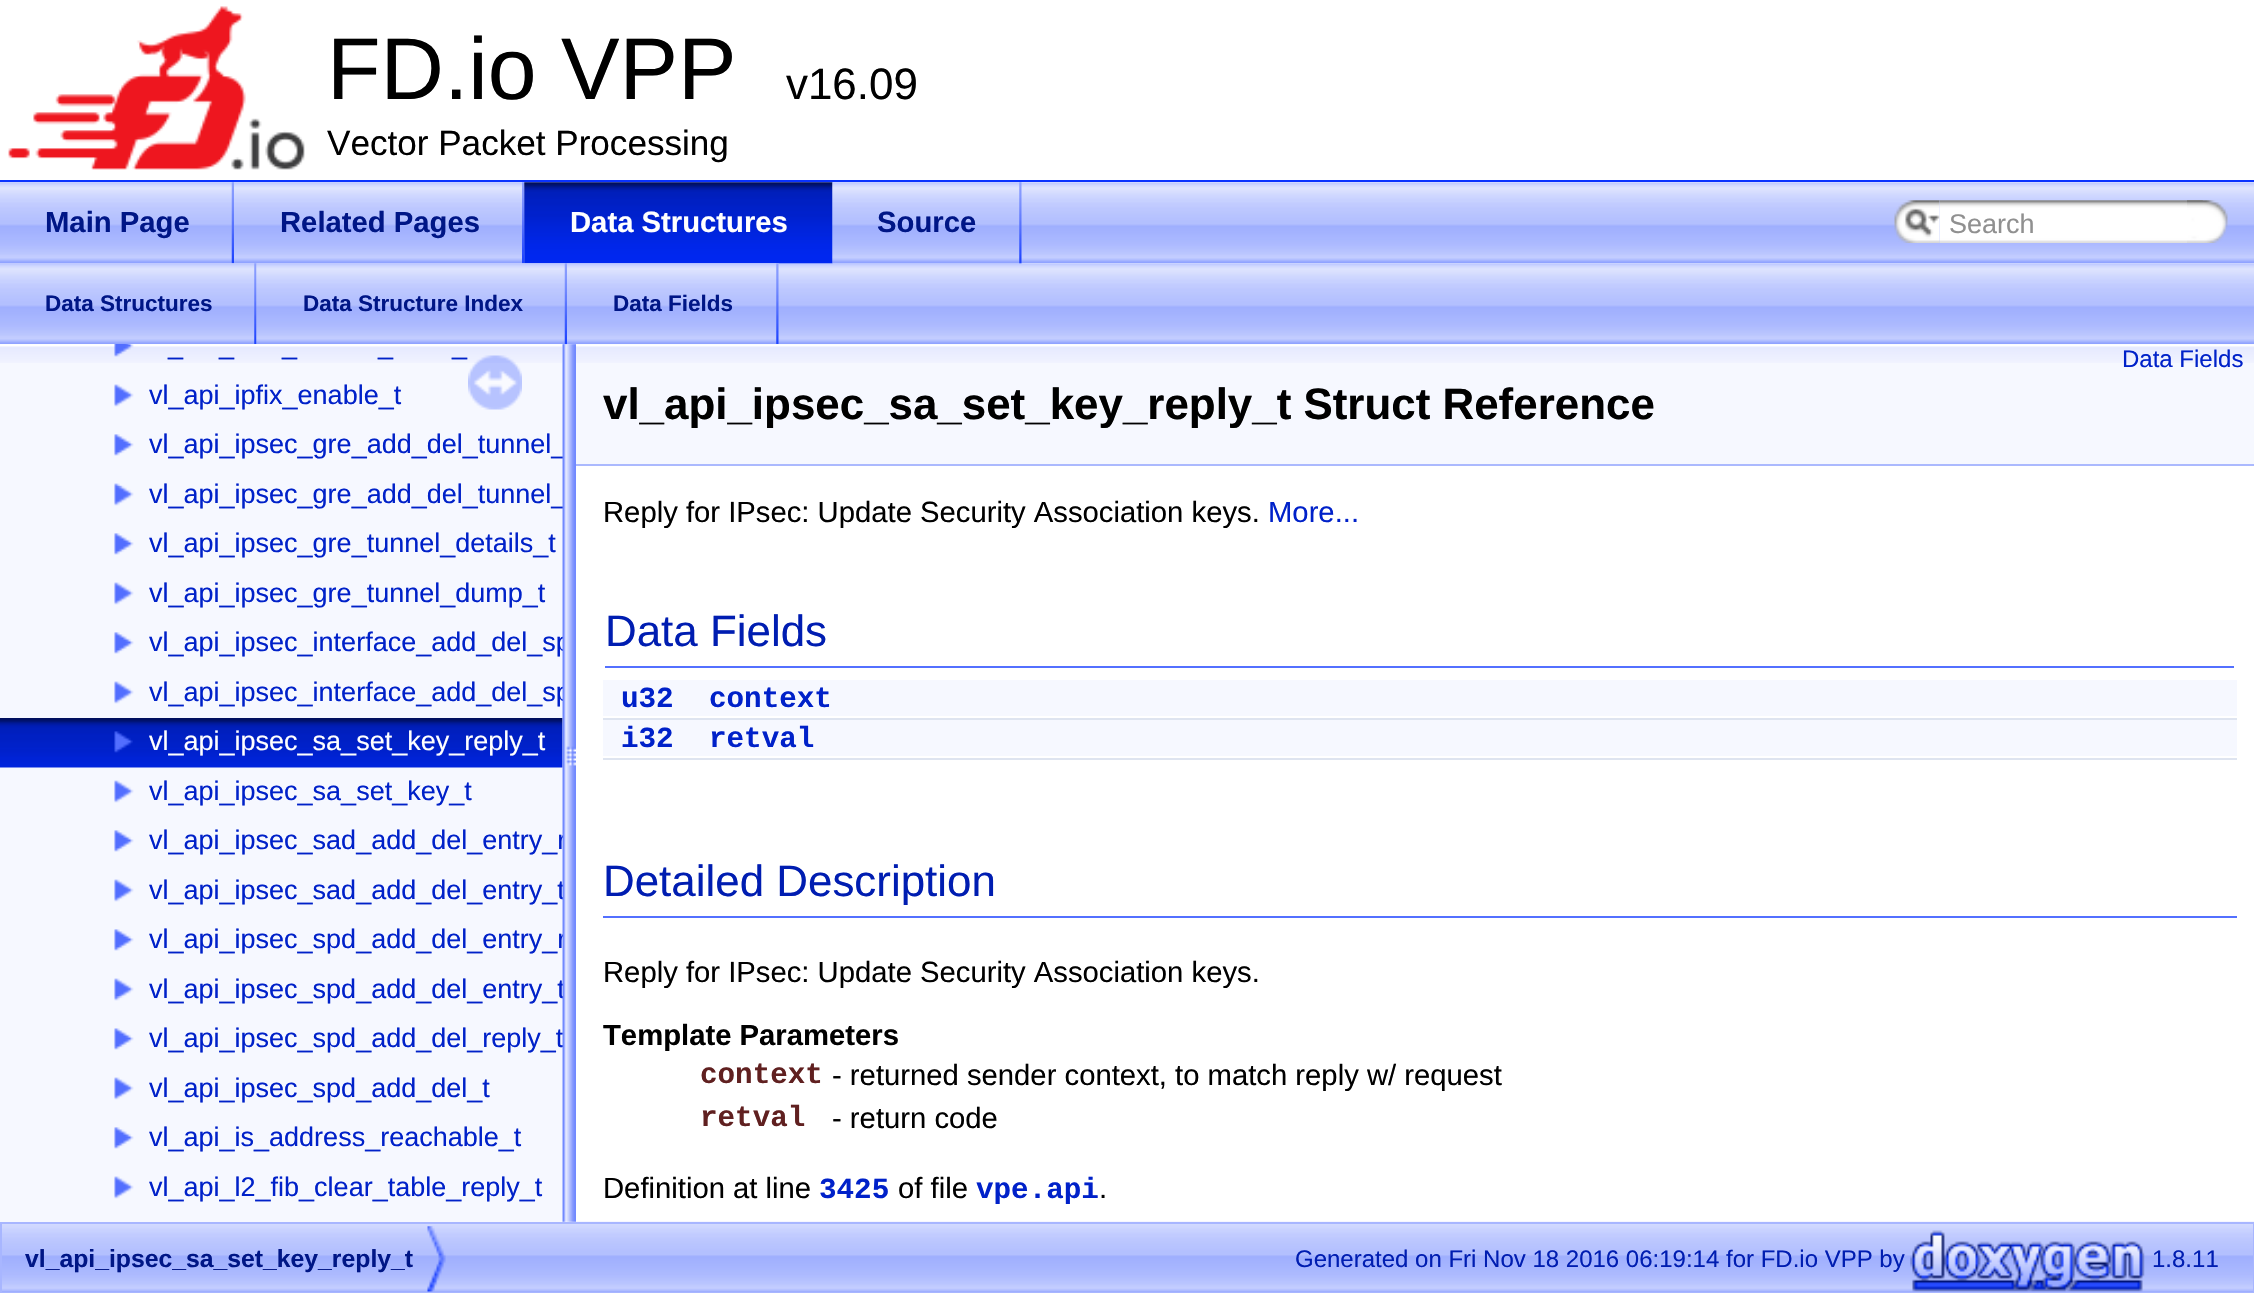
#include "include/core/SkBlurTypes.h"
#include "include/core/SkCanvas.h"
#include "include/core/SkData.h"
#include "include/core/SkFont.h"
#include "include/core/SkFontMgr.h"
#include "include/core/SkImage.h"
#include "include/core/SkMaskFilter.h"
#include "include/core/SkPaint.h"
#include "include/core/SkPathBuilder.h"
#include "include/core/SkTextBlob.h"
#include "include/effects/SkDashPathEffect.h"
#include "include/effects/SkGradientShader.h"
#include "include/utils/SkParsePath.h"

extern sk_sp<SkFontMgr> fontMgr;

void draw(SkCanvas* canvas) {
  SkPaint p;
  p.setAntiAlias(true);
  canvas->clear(SK_ColorWHITE);
  p.setColor(SkColorSetRGB(9, 50, 255));
  canvas->drawRect(SkRect::MakeLTRB(0, 180, 2254, 182), p);
  canvas->drawImageRect(SkImages::DeferredFromEncodedData(SkData::MakeFromFileName("images/1.png")), SkRect::MakeLTRB(8, 6, 305, 170), SkSamplingOptions());
  canvas->drawImageRect(SkImages::DeferredFromEncodedData(SkData::MakeFromFileName("images/2.png")), SkRect::MakeLTRB(0, 182, 2254, 264), SkSamplingOptions());
  canvas->drawImageRect(SkImages::DeferredFromEncodedData(SkData::MakeFromFileName("images/15.png")), SkRect::MakeLTRB(0, 263, 2254, 345), SkSamplingOptions());
  canvas->drawImageRect(SkImages::DeferredFromEncodedData(SkData::MakeFromFileName("images/3.png")), SkRect::MakeLTRB(0, 182, 234, 264), SkSamplingOptions());
  canvas->drawImageRect(SkImages::DeferredFromEncodedData(SkData::MakeFromFileName("images/4.png")), SkRect::MakeLTRB(231, 182, 234, 264), SkSamplingOptions());
  canvas->drawImageRect(SkImages::DeferredFromEncodedData(SkData::MakeFromFileName("images/5.png")), SkRect::MakeLTRB(234, 182, 524, 264), SkSamplingOptions());
  canvas->drawImageRect(SkImages::DeferredFromEncodedData(SkData::MakeFromFileName("images/6.png")), SkRect::MakeLTRB(522, 182, 525, 264), SkSamplingOptions());
  canvas->drawImageRect(SkImages::DeferredFromEncodedData(SkData::MakeFromFileName("images/7.png")), SkRect::MakeLTRB(524, 182, 833, 264), SkSamplingOptions());
  canvas->drawImageRect(SkImages::DeferredFromEncodedData(SkData::MakeFromFileName("images/8.png")), SkRect::MakeLTRB(524, 182, 833, 264), SkSamplingOptions());
  canvas->drawImageRect(SkImages::DeferredFromEncodedData(SkData::MakeFromFileName("images/9.png")), SkRect::MakeLTRB(832, 182, 1022, 264), SkSamplingOptions());
  canvas->drawImageRect(SkImages::DeferredFromEncodedData(SkData::MakeFromFileName("images/10.png")), SkRect::MakeLTRB(1019, 182, 1022, 264), SkSamplingOptions());
  canvas->drawImageRect(SkImages::DeferredFromEncodedData(SkData::MakeFromFileName("images/11.png")), SkRect::MakeLTRB(1894, 200, 1940, 243), SkSamplingOptions());
  canvas->drawImageRect(SkImages::DeferredFromEncodedData(SkData::MakeFromFileName("images/12.png")), SkRect::MakeLTRB(1905, 208, 1940, 237), SkSamplingOptions());
  canvas->drawImageRect(SkImages::DeferredFromEncodedData(SkData::MakeFromFileName("images/13.png")), SkRect::MakeLTRB(1939, 200, 2203, 243), SkSamplingOptions());
  canvas->drawImageRect(SkImages::DeferredFromEncodedData(SkData::MakeFromFileName("images/14.png")), SkRect::MakeLTRB(2187, 200, 2228, 243), SkSamplingOptions());
  canvas->drawImageRect(SkImages::DeferredFromEncodedData(SkData::MakeFromFileName("images/16.png")), SkRect::MakeLTRB(0, 263, 257, 344), SkSamplingOptions());
  canvas->drawImageRect(SkImages::DeferredFromEncodedData(SkData::MakeFromFileName("images/17.png")), SkRect::MakeLTRB(254, 263, 257, 344), SkSamplingOptions());
  canvas->drawImageRect(SkImages::DeferredFromEncodedData(SkData::MakeFromFileName("images/18.png")), SkRect::MakeLTRB(256, 263, 567, 345), SkSamplingOptions());
  canvas->drawImageRect(SkImages::DeferredFromEncodedData(SkData::MakeFromFileName("images/19.png")), SkRect::MakeLTRB(564, 263, 567, 345), SkSamplingOptions());
  canvas->drawImageRect(SkImages::DeferredFromEncodedData(SkData::MakeFromFileName("images/20.png")), SkRect::MakeLTRB(567, 263, 779, 345), SkSamplingOptions());
  canvas->drawImageRect(SkImages::DeferredFromEncodedData(SkData::MakeFromFileName("images/21.png")), SkRect::MakeLTRB(776, 263, 779, 344), SkSamplingOptions());
  canvas->drawImageRect(SkImages::DeferredFromEncodedData(SkData::MakeFromFileName("images/35.png")), SkRect::MakeLTRB(2, 1221, 2254, 1292), SkSamplingOptions());
  p.setColor(SkColorSetRGB(246, 248, 255));
  canvas->drawRect(SkRect::MakeLTRB(0, 344, 563, 1222), p);
  canvas->drawImageRect(SkImages::DeferredFromEncodedData(SkData::MakeFromFileName("images/22.png")), SkRect::MakeLTRB(0, 344, 563, 363), SkSamplingOptions());
  canvas->drawImageRect(SkImages::DeferredFromEncodedData(SkData::MakeFromFileName("images/23.png")), SkRect::MakeLTRB(468, 355, 522, 410), SkSamplingOptions());
  canvas->drawImageRect(SkImages::DeferredFromEncodedData(SkData::MakeFromFileName("images/24.png")), SkRect::MakeLTRB(114, 344, 134, 357), SkSamplingOptions());
  canvas->drawImageRect(SkImages::DeferredFromEncodedData(SkData::MakeFromFileName("images/25.png")), SkRect::MakeLTRB(114, 384, 134, 407), SkSamplingOptions());
  canvas->drawImageRect(SkImages::DeferredFromEncodedData(SkData::MakeFromFileName("images/26.png")), SkRect::MakeLTRB(114, 434, 134, 456), SkSamplingOptions());
  canvas->drawImageRect(SkImages::DeferredFromEncodedData(SkData::MakeFromFileName("images/27.png")), SkRect::MakeLTRB(114, 483, 134, 506), SkSamplingOptions());
  canvas->drawImageRect(SkImages::DeferredFromEncodedData(SkData::MakeFromFileName("images/26.png")), SkRect::MakeLTRB(114, 533, 134, 555), SkSamplingOptions());
  canvas->drawImageRect(SkImages::DeferredFromEncodedData(SkData::MakeFromFileName("images/25.png")), SkRect::MakeLTRB(114, 582, 134, 605), SkSamplingOptions());
  canvas->drawImageRect(SkImages::DeferredFromEncodedData(SkData::MakeFromFileName("images/26.png")), SkRect::MakeLTRB(114, 632, 134, 654), SkSamplingOptions());
  canvas->drawImageRect(SkImages::DeferredFromEncodedData(SkData::MakeFromFileName("images/25.png")), SkRect::MakeLTRB(114, 681, 134, 704), SkSamplingOptions());
  canvas->drawImageRect(SkImages::DeferredFromEncodedData(SkData::MakeFromFileName("images/28.png")), SkRect::MakeLTRB(0, 718, 563, 768), SkSamplingOptions());
  canvas->drawImageRect(SkImages::DeferredFromEncodedData(SkData::MakeFromFileName("images/29.png")), SkRect::MakeLTRB(114, 731, 133, 753), SkSamplingOptions());
  canvas->drawImageRect(SkImages::DeferredFromEncodedData(SkData::MakeFromFileName("images/30.png")), SkRect::MakeLTRB(114, 780, 134, 803), SkSamplingOptions());
  canvas->drawImageRect(SkImages::DeferredFromEncodedData(SkData::MakeFromFileName("images/26.png")), SkRect::MakeLTRB(114, 830, 134, 852), SkSamplingOptions());
  canvas->drawImageRect(SkImages::DeferredFromEncodedData(SkData::MakeFromFileName("images/25.png")), SkRect::MakeLTRB(114, 879, 134, 902), SkSamplingOptions());
  canvas->drawImageRect(SkImages::DeferredFromEncodedData(SkData::MakeFromFileName("images/26.png")), SkRect::MakeLTRB(114, 929, 134, 951), SkSamplingOptions());
  canvas->drawImageRect(SkImages::DeferredFromEncodedData(SkData::MakeFromFileName("images/31.png")), SkRect::MakeLTRB(114, 978, 134, 1001), SkSamplingOptions());
  canvas->drawImageRect(SkImages::DeferredFromEncodedData(SkData::MakeFromFileName("images/32.png")), SkRect::MakeLTRB(114, 1028, 134, 1050), SkSamplingOptions());
  canvas->drawImageRect(SkImages::DeferredFromEncodedData(SkData::MakeFromFileName("images/25.png")), SkRect::MakeLTRB(114, 1077, 134, 1100), SkSamplingOptions());
  canvas->drawImageRect(SkImages::DeferredFromEncodedData(SkData::MakeFromFileName("images/26.png")), SkRect::MakeLTRB(114, 1127, 134, 1149), SkSamplingOptions());
  canvas->drawImageRect(SkImages::DeferredFromEncodedData(SkData::MakeFromFileName("images/25.png")), SkRect::MakeLTRB(114, 1176, 134, 1199), SkSamplingOptions());
  canvas->drawRect(SkRect::MakeLTRB(576, 344, 2254, 464), p);
  canvas->drawImageRect(SkImages::DeferredFromEncodedData(SkData::MakeFromFileName("images/34.png")), SkRect::MakeLTRB(576, 344, 2254, 363), SkSamplingOptions());
  p.setColor(SkColorSetRGB(171, 185, 254));
  canvas->drawRect(SkRect::MakeLTRB(576, 464, 2254, 466), p);
  p.setColor(SkColorSetRGB(83, 112, 255));
  canvas->drawRect(SkRect::MakeLTRB(605, 666, 2234, 668), p);
  p.setColor(SkColorSetRGB(246, 248, 255));
  canvas->drawRect(SkRect::MakeLTRB(603, 680, 2237, 716), p);
  p.setColor(SkColorSetRGB(222, 228, 240));
  canvas->drawRect(SkRect::MakeLTRB(603, 718, 2237, 720), p);
  p.setColor(SkColorSetRGB(246, 248, 255));
  canvas->drawRect(SkRect::MakeLTRB(603, 720, 2237, 756), p);
  p.setColor(SkColorSetRGB(222, 228, 240));
  canvas->drawRect(SkRect::MakeLTRB(603, 758, 2237, 760), p);
  p.setColor(SkColorSetRGB(83, 112, 255));
  canvas->drawRect(SkRect::MakeLTRB(603, 916, 2237, 918), p);
  p.setStyle(SkPaint::kStroke_Style);
  p.setStrokeWidth(2);
  p.setColor(SkColorSetRGB(168, 182, 255));
  canvas->drawRect(SkRect::MakeLTRB(1, 1223, 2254, 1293), p);
  canvas->drawImageRect(SkImages::DeferredFromEncodedData(SkData::MakeFromFileName("images/36.png")), SkRect::MakeLTRB(427, 1226, 446, 1292), SkSamplingOptions());
  canvas->drawImageRect(SkImages::DeferredFromEncodedData(SkData::MakeFromFileName("images/37.png")), SkRect::MakeLTRB(1910, 1230, 2145, 1292), SkSamplingOptions());
  SkFont font1(fontMgr->matchFamilyStyle("Liberation Sans", SkFontStyle::Normal()), 87.75f);
  font1.setSubpixel(true);
  p.setStyle(SkPaint::kFill_Style);
  p.setColor(SK_ColorBLACK);
  canvas->drawString("FD.io VPP", 327, 99, font1, p);
  SkFont font2(fontMgr->matchFamilyStyle("Liberation Sans", SkFontStyle::Normal()), 43.9f);
  font2.setSubpixel(true);
  canvas->drawString("v16.09", 786, 99, font2, p);
  SkFont font3(fontMgr->matchFamilyStyle("Liberation Sans", SkFontStyle::Normal()), 35.1f);
  font3.setSubpixel(true);
  canvas->drawString("Vector Packet Processing", 327, 155, font3, p);
  SkFont font4(fontMgr->matchFamilyStyle("Liberation Sans", SkFontStyle::Bold()), 29.25f);
  font4.setSubpixel(true);
  p.setColor(SkColorSetRGB(0, 22, 134));
  canvas->drawString("Main Page", 45, 232, font4, p);
  canvas->drawString("Related Pages", 280, 232, font4, p);
  p.setColor(SK_ColorWHITE);
  canvas->drawString("Data Structures", 570, 232, font4, p);
  p.setColor(SkColorSetRGB(0, 22, 134));
  canvas->drawString("Source", 877, 232, font4, p);
  SkFont font5(fontMgr->matchFamilyStyle("Liberation Sans", SkFontStyle::Normal()), 27);
  font5.setSubpixel(true);
  p.setColor(SkColorSetRGB(144, 144, 144));
  canvas->drawString("Search", 1949, 233, font5, p);
  SkFont font6(fontMgr->matchFamilyStyle("Liberation Sans", SkFontStyle::Bold()), 22.5f);
  font6.setSubpixel(true);
  p.setColor(SkColorSetRGB(0, 22, 134));
  canvas->drawString("Data Structures", 45, 311, font6, p);
  canvas->drawString("Data Structure Index", 303, 311, font6, p);
  canvas->drawString("Data Fields", 613, 311, font6, p);
  p.setColor(SkColorSetRGB(0, 33, 201));
  canvas->drawString("_", 168, 354, font5, p);
  canvas->drawString("_", 219, 354, font5, p);
  canvas->drawString("_", 282, 354, font5, p);
  canvas->drawString("_", 378, 354, font5, p);
  canvas->drawString("_", 452, 354, font5, p);
  canvas->drawString("vl_api_ipfix_enable_t", 149, 404, font5, p);
  canvas->drawString("vl_api_ipsec_gre_add_del_tunnel_", 149, 453, font5, p);
  canvas->drawString("vl_api_ipsec_gre_add_del_tunnel_", 149, 503, font5, p);
  canvas->drawString("vl_api_ipsec_gre_tunnel_details_t", 149, 552, font5, p);
  canvas->drawString("vl_api_ipsec_gre_tunnel_dump_t", 149, 602, font5, p);
  canvas->drawString("vl_api_ipsec_interface_add_del_sp", 149, 651, font5, p);
  canvas->drawString("vl_api_ipsec_interface_add_del_sp", 149, 701, font5, p);
  p.setColor(SK_ColorWHITE);
  canvas->drawString("vl_api_ipsec_sa_set_key_reply_t", 149, 750, font5, p);
  p.setColor(SkColorSetRGB(0, 33, 201));
  canvas->drawString("vl_api_ipsec_sa_set_key_t", 149, 800, font5, p);
  canvas->drawString("vl_api_ipsec_sad_add_del_entry_r", 149, 849, font5, p);
  canvas->drawString("vl_api_ipsec_sad_add_del_entry_t", 149, 899, font5, p);
  canvas->drawString("vl_api_ipsec_spd_add_del_entry_r", 149, 948, font5, p);
  canvas->drawString("vl_api_ipsec_spd_add_del_entry_t", 149, 998, font5, p);
  canvas->drawString("vl_api_ipsec_spd_add_del_reply_t", 149, 1047, font5, p);
  canvas->drawString("vl_api_ipsec_spd_add_del_t", 149, 1097, font5, p);
  canvas->drawString("vl_api_is_address_reachable_t", 149, 1146, font5, p);
  canvas->drawString("vl_api_l2_fib_clear_table_reply_t", 149, 1196, font5, p);
  canvas->drawImageRect(SkImages::DeferredFromEncodedData(SkData::MakeFromFileName("images/33.png")), SkRect::MakeLTRB(562, 344, 576, 1222), SkSamplingOptions());
  SkFont font7(fontMgr->matchFamilyStyle("Liberation Sans", SkFontStyle::Normal()), 24);
  font7.setSubpixel(true);
  canvas->drawString("Data Fields", 2122, 367, font7, p);
  SkFont font8(fontMgr->matchFamilyStyle("Liberation Sans", SkFontStyle::Bold()), 43.9f);
  font8.setSubpixel(true);
  p.setColor(SK_ColorBLACK);
  canvas->drawString("vl_api_ipsec_sa_set_key_reply_t Struct Reference", 603, 419, font8, p);
  SkFont font9(fontMgr->matchFamilyStyle("Liberation Sans", SkFontStyle::Normal()), 29.25f);
  font9.setSubpixel(true);
  canvas->drawString("Reply for IPsec: Update Security Association keys.", 603, 522, font9, p);
  p.setColor(SkColorSetRGB(0, 33, 201));
  canvas->drawString("More...", 1268, 522, font9, p);
  p.setColor(SkColorSetRGB(0, 29, 177));
  canvas->drawString("Data Fields", 605, 646, font2, p);
  SkFont font10(fontMgr->matchFamilyStyle("Liberation Mono", SkFontStyle::Bold()), 29.25f);
  font10.setSubpixel(true);
  p.setColor(SkColorSetRGB(0, 33, 201));
  canvas->drawString("u32", 621, 707, font10, p);
  canvas->drawString("context", 709, 707, font10, p);
  canvas->drawString("i32", 621, 747, font10, p);
  canvas->drawString("retval", 709, 747, font10, p);
  p.setColor(SkColorSetRGB(0, 29, 177));
  canvas->drawString("Detailed Description", 603, 896, font2, p);
  p.setColor(SK_ColorBLACK);
  canvas->drawString("Reply for IPsec: Update Security Association keys.", 603, 982, font9, p);
  canvas->drawString("Template Parameters", 603, 1045, font4, p);
  p.setColor(SkColorSetRGB(96, 32, 32));
  canvas->drawString("context", 700, 1083, font10, p);
  p.setColor(SK_ColorBLACK);
  canvas->drawString("- returned sender context, to match reply w/ request", 832, 1085, font9, p);
  p.setColor(SkColorSetRGB(96, 32, 32));
  canvas->drawString("retval", 700, 1126, font10, p);
  p.setColor(SK_ColorBLACK);
  canvas->drawString("- return code", 832, 1128, font9, p);
  canvas->drawString("Definition at line", 603, 1198, font9, p);
  p.setColor(SkColorSetRGB(0, 33, 201));
  canvas->drawString("3425", 819, 1198, font10, p);
  p.setColor(SK_ColorBLACK);
  canvas->drawString("of file", 898, 1198, font9, p);
  p.setColor(SkColorSetRGB(0, 33, 201));
  canvas->drawString("vpe.api", 976, 1198, font10, p);
  p.setColor(SK_ColorBLACK);
  canvas->drawString(".", 1099, 1198, font9, p);
  SkFont font11(fontMgr->matchFamilyStyle("Liberation Sans", SkFontStyle::Bold()), 24.75f);
  font11.setSubpixel(true);
  p.setColor(SkColorSetRGB(0, 22, 134));
  canvas->drawString("vl_api_ipsec_sa_set_key_reply_t", 25, 1267, font11, p);
  p.setColor(SkColorSetRGB(0, 29, 177));
  canvas->drawString("Generated on Fri Nov 18 2016 06:19:14 for FD.io VPP by", 1295, 1267, font7, p);
  canvas->drawString("1.8.11", 2152, 1267, font7, p);
}
